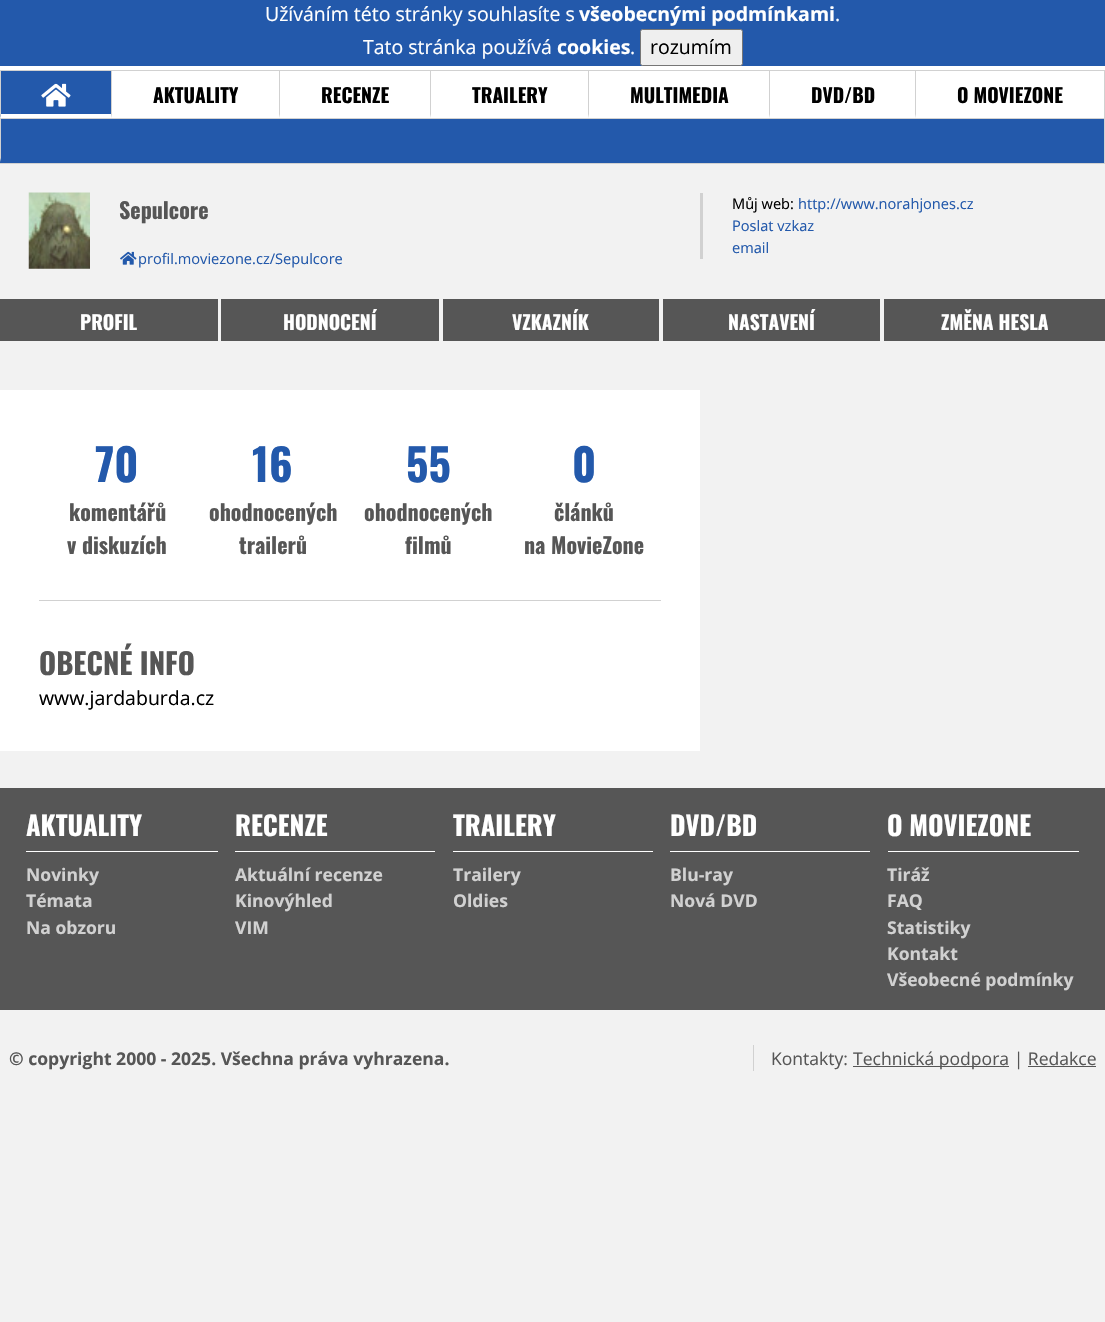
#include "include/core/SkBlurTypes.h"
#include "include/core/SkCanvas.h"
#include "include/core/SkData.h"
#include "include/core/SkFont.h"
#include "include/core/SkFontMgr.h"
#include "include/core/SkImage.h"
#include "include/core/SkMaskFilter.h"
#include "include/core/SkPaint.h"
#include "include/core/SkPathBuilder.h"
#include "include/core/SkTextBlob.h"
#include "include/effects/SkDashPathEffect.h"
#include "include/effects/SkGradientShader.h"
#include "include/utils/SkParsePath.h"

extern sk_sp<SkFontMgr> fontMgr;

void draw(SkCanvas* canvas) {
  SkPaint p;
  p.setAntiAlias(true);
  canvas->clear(SkColorSetRGB(242, 242, 242));
  p.setColor(SkColorSetRGB(35, 89, 171));
  canvas->drawRect(SkRect::MakeLTRB(0, 0, 1105, 66), p);
  p.setColor(SkColorSetRGB(239, 239, 239));
  canvas->drawRoundRect(SkRect::MakeLTRB(640.5f, 29.5f, 742.5f, 65.5f), 2, 2, p);
  p.setStyle(SkPaint::kStroke_Style);
  p.setStrokeWidth(1);
  p.setColor(SkColorSetRGB(118, 118, 118));
  canvas->drawRoundRect(SkRect::MakeLTRB(640.5f, 29.5f, 742.5f, 65.5f), 2, 2, p);
  p.setStyle(SkPaint::kFill_Style);
  p.setColor(SK_ColorWHITE);
  canvas->drawRect(SkRect::MakeLTRB(0, 66, 1105, 118), p);
  p.setColor(SkColorSetRGB(209, 209, 209));
  canvas->drawRect(SkRect::MakeLTRB(0, 70, 1105, 71), p);
  canvas->drawRect(SkRect::MakeLTRB(1104, 70, 1105, 164), p);
  canvas->drawRect(SkRect::MakeLTRB(0, 118, 1105, 119), p);
  p.setColor(SkColorSetRGB(35, 89, 171));
  canvas->drawRect(SkRect::MakeLTRB(0, 71, 111, 118), p);
  p.setColor(SK_ColorWHITE);
  canvas->drawPath(SkPathBuilder().moveTo(111, 118).lineTo(0, 118).lineTo(1, 114).lineTo(111, 114).close().detach(), p);
  p.setColor(SkColorSetRGB(209, 209, 209));
  canvas->drawPath(SkPathBuilder().moveTo(0, 118).lineTo(0, 71).lineTo(1, 71).lineTo(1, 114).close().detach(), p);
  canvas->drawImageRect(SkImages::DeferredFromEncodedData(SkData::MakeFromFileName("images/1.png")), SkRect::MakeLTRB(41, 83, 71, 107), SkSamplingOptions());
  canvas->drawPath(SkPathBuilder().moveTo(111, 118).lineTo(111, 71).lineTo(112, 71).lineTo(112, 114).close().detach(), p);
  canvas->drawPath(SkPathBuilder().moveTo(279, 118).lineTo(279, 71).lineTo(280, 71).lineTo(280, 114).close().detach(), p);
  canvas->drawPath(SkPathBuilder().moveTo(430, 118).lineTo(430, 71).lineTo(431, 71).lineTo(431, 114).close().detach(), p);
  canvas->drawPath(SkPathBuilder().moveTo(588, 118).lineTo(588, 71).lineTo(589, 71).lineTo(589, 114).close().detach(), p);
  canvas->drawPath(SkPathBuilder().moveTo(769, 118).lineTo(769, 71).lineTo(770, 71).lineTo(770, 114).close().detach(), p);
  canvas->drawPath(SkPathBuilder().moveTo(915, 118).lineTo(915, 71).lineTo(916, 71).lineTo(916, 114).close().detach(), p);
  p.setColor(SkColorSetRGB(35, 89, 171));
  canvas->drawRect(SkRect::MakeLTRB(0, 119, 1104, 163), p);
  p.setColor(SkColorSetRGB(209, 209, 209));
  canvas->drawRect(SkRect::MakeLTRB(0, 163, 1105, 164), p);
  canvas->drawPath(SkPathBuilder().moveTo(0, 162).lineTo(0, 119).lineTo(1, 119).lineTo(1, 158).close().detach(), p);
  canvas->drawImageRect(SkImages::DeferredFromEncodedData(SkData::MakeFromFileName("images/2.png")), SkRect::MakeLTRB(28, 192, 90, 269), SkSamplingOptions());
  canvas->drawImageRect(SkImages::DeferredFromEncodedData(SkData::MakeFromFileName("images/3.png")), SkRect::MakeLTRB(120, 251, 137, 265), SkSamplingOptions());
  canvas->drawRect(SkRect::MakeLTRB(700, 193, 703, 259), p);
  p.setColor(SkColorSetRGB(86, 86, 86));
  canvas->drawRect(SkRect::MakeLTRB(0, 299, 218, 341), p);
  canvas->drawRect(SkRect::MakeLTRB(221, 299, 439, 341), p);
  canvas->drawRect(SkRect::MakeLTRB(443, 299, 659, 341), p);
  canvas->drawRect(SkRect::MakeLTRB(663, 299, 880, 341), p);
  canvas->drawRect(SkRect::MakeLTRB(884, 299, 1105, 341), p);
  p.setColor(SK_ColorWHITE);
  canvas->drawRect(SkRect::MakeLTRB(0, 390, 700, 751), p);
  p.setColor(SkColorSetRGB(209, 209, 209));
  canvas->drawRect(SkRect::MakeLTRB(39, 600, 661, 601), p);
  p.setColor(SkColorSetRGB(86, 86, 86));
  canvas->drawRect(SkRect::MakeLTRB(0, 788, 1105, 1010), p);
  p.setColor(SK_ColorWHITE);
  canvas->drawRect(SkRect::MakeLTRB(26, 851, 218, 852), p);
  canvas->drawRect(SkRect::MakeLTRB(235, 851, 435, 852), p);
  canvas->drawRect(SkRect::MakeLTRB(453, 851, 653, 852), p);
  canvas->drawRect(SkRect::MakeLTRB(670, 851, 870, 852), p);
  canvas->drawRect(SkRect::MakeLTRB(888, 851, 1079, 852), p);
  p.setColor(SkColorSetRGB(209, 209, 209));
  canvas->drawRect(SkRect::MakeLTRB(753, 1045, 754, 1071), p);
  p.setColor(SkColorSetRGB(86, 86, 86));
  canvas->drawRect(SkRect::MakeLTRB(853, 1066, 1009, 1067), p);
  canvas->drawRect(SkRect::MakeLTRB(1028, 1066, 1096, 1067), p);
  SkFont font1(fontMgr->matchFamilyStyle("Open Sans", SkFontStyle::Normal()), 19.5f);
  font1.setSubpixel(true);
  p.setColor(SK_ColorWHITE);
  canvas->drawString("Užíváním této stránky souhlasíte s", 265, 21, font1, p);
  SkFont font2(fontMgr->matchFamilyStyle("Open Sans", SkFontStyle::Bold()), 19.5f);
  font2.setSubpixel(true);
  canvas->drawString("všeobecnými podmínkami", 579, 21, font2, p);
  canvas->drawString(".", 835, 21, font1, p);
  canvas->drawString("Tato stránka používá", 363, 54, font1, p);
  canvas->drawString("cookies", 557, 54, font2, p);
  canvas->drawString(".", 630, 54, font1, p);
  p.setColor(SK_ColorBLACK);
  canvas->drawString("rozumím", 650, 54, font1, p);
  SkFont font3(fontMgr->matchFamilyStyle("Oswald", SkFontStyle::Bold()), 19.5f);
  font3.setSubpixel(true);
  canvas->drawString("AKTUALITY", 153, 103, font3, p);
  canvas->drawString("RECENZE", 321, 103, font3, p);
  canvas->drawString("TRAILERY", 472, 103, font3, p);
  canvas->drawString("MULTIMEDIA", 630, 103, font3, p);
  canvas->drawString("DVD/BD", 811, 103, font3, p);
  canvas->drawString("O MOVIEZONE", 957, 103, font3, p);
  SkFont font4(fontMgr->matchFamilyStyle("Oswald", SkFontStyle::Bold()), 22);
  font4.setSubpixel(true);
  p.setColor(SkColorSetRGB(86, 86, 86));
  canvas->drawString("Sepulcore", 119, 219, font4, p);
  SkFont font5(fontMgr->matchFamilyStyle("Open Sans", SkFontStyle::Normal()), 14.6f);
  font5.setSubpixel(true);
  p.setColor(SkColorSetRGB(35, 89, 171));
  canvas->drawString("profil.moviezone.cz/Sepulcore", 138, 264, font5, p);
  p.setColor(SK_ColorBLACK);
  canvas->drawString("Můj web:", 732, 209, font5, p);
  p.setColor(SkColorSetRGB(35, 89, 171));
  canvas->drawString("http://www.norahjones.cz", 798, 209, font5, p);
  canvas->drawString("Poslat vzkaz", 732, 231, font5, p);
  canvas->drawString("email", 732, 253, font5, p);
  p.setColor(SK_ColorWHITE);
  canvas->drawString("PROFIL", 80, 330, font3, p);
  canvas->drawString("HODNOCENÍ", 283, 330, font3, p);
  canvas->drawString("VZKAZNÍK", 512, 330, font3, p);
  canvas->drawString("NASTAVENÍ", 728, 330, font3, p);
  canvas->drawString("ZMĚNA HESLA", 941, 330, font3, p);
  SkFont font6(fontMgr->matchFamilyStyle("Oswald", SkFontStyle::Bold()), 44);
  font6.setSubpixel(true);
  p.setColor(SkColorSetRGB(35, 89, 171));
  canvas->drawString("70", 95, 482, font6, p);
  p.setColor(SkColorSetRGB(86, 86, 86));
  canvas->drawString("komentářů", 69, 521, font4, p);
  canvas->drawString("v diskuzích", 67, 554, font4, p);
  p.setColor(SkColorSetRGB(35, 89, 171));
  canvas->drawString("16", 252, 482, font6, p);
  p.setColor(SkColorSetRGB(86, 86, 86));
  canvas->drawString("ohodnocených", 209, 521, font4, p);
  canvas->drawString("trailerů", 239, 554, font4, p);
  p.setColor(SkColorSetRGB(35, 89, 171));
  canvas->drawString("55", 406, 482, font6, p);
  p.setColor(SkColorSetRGB(86, 86, 86));
  canvas->drawString("ohodnocených", 364, 521, font4, p);
  canvas->drawString("filmů", 405, 554, font4, p);
  p.setColor(SkColorSetRGB(35, 89, 171));
  canvas->drawString("0", 572, 482, font6, p);
  p.setColor(SkColorSetRGB(86, 86, 86));
  canvas->drawString("článků", 554, 521, font4, p);
  canvas->drawString("na MovieZone", 524, 554, font4, p);
  SkFont font7(fontMgr->matchFamilyStyle("Oswald", SkFontStyle::Bold()), 29.25f);
  font7.setSubpixel(true);
  canvas->drawString("OBECNÉ INFO", 39, 675, font7, p);
  p.setColor(SK_ColorBLACK);
  canvas->drawString("www.jardaburda.cz", 39, 705, font1, p);
  SkFont font8(fontMgr->matchFamilyStyle("Oswald", SkFontStyle::Bold()), 26.5f);
  font8.setSubpixel(true);
  p.setColor(SK_ColorWHITE);
  canvas->drawString("AKTUALITY", 26, 836, font8, p);
  SkFont font9(fontMgr->matchFamilyStyle("Open Sans", SkFontStyle::Bold()), 17.55f);
  font9.setSubpixel(true);
  p.setColor(SkColorSetRGB(209, 209, 209));
  canvas->drawString("Novinky", 26, 881, font9, p);
  canvas->drawString("Témata", 26, 907, font9, p);
  canvas->drawString("Na obzoru", 26, 934, font9, p);
  p.setColor(SK_ColorWHITE);
  canvas->drawString("RECENZE", 235, 836, font8, p);
  p.setColor(SkColorSetRGB(209, 209, 209));
  canvas->drawString("Aktuální recenze", 235, 881, font9, p);
  canvas->drawString("Kinovýhled", 235, 907, font9, p);
  canvas->drawString("VIM", 235, 934, font9, p);
  p.setColor(SK_ColorWHITE);
  canvas->drawString("TRAILERY", 453, 836, font8, p);
  p.setColor(SkColorSetRGB(209, 209, 209));
  canvas->drawString("Trailery", 453, 881, font9, p);
  canvas->drawString("Oldies", 453, 907, font9, p);
  p.setColor(SK_ColorWHITE);
  canvas->drawString("DVD/BD", 670, 836, font8, p);
  p.setColor(SkColorSetRGB(209, 209, 209));
  canvas->drawString("Blu-ray", 670, 881, font9, p);
  canvas->drawString("Nová DVD", 670, 907, font9, p);
  p.setColor(SK_ColorWHITE);
  canvas->drawString("O MOVIEZONE", 887, 836, font8, p);
  p.setColor(SkColorSetRGB(209, 209, 209));
  canvas->drawString("Tiráž", 887, 881, font9, p);
  canvas->drawString("FAQ", 887, 907, font9, p);
  canvas->drawString("Statistiky", 887, 934, font9, p);
  canvas->drawString("Kontakt", 887, 960, font9, p);
  canvas->drawString("Všeobecné podmínky", 887, 986, font9, p);
  p.setColor(SkColorSetRGB(86, 86, 86));
  canvas->drawString("© copyright 2000 - 2025. Všechna práva vyhrazena.", 9, 1065, font9, p);
  SkFont font10(fontMgr->matchFamilyStyle("Open Sans", SkFontStyle::Normal()), 17.55f);
  font10.setSubpixel(true);
  canvas->drawString("Kontakty:", 771, 1065, font10, p);
  canvas->drawString("Technická podpora | Redakce", 853, 1065, font10, p);
}
